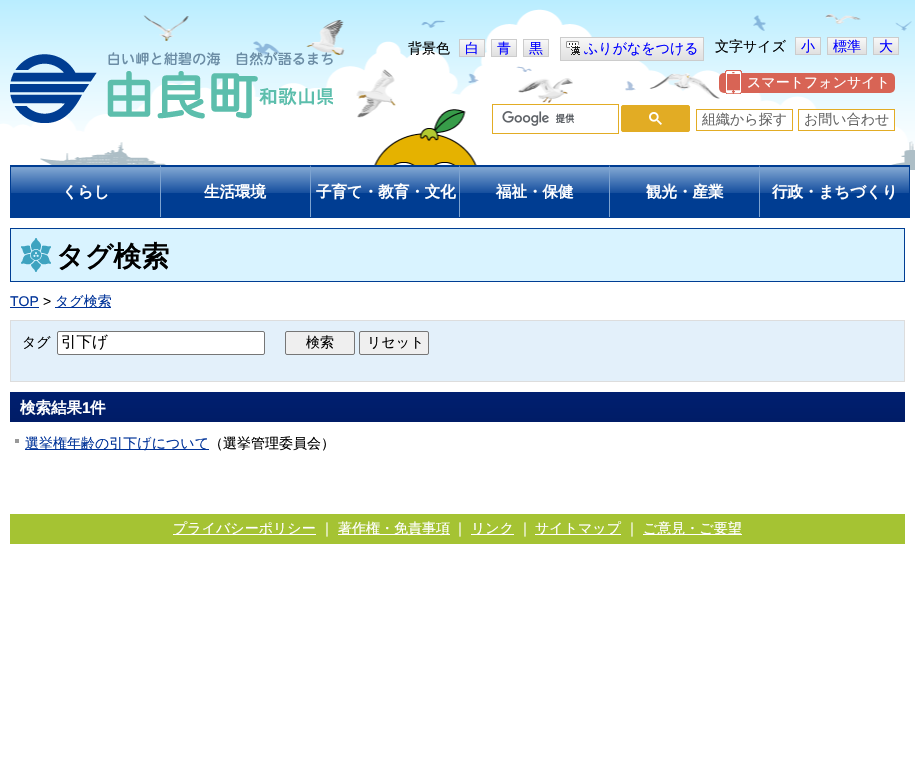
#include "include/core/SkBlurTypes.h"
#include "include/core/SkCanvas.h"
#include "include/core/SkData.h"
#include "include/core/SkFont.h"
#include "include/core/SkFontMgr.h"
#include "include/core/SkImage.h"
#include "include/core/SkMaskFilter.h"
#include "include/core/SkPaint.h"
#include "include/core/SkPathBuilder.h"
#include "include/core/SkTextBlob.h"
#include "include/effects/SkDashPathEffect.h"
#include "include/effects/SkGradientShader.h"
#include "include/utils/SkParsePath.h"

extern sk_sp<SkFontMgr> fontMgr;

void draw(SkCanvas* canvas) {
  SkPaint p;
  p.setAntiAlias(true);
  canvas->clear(SK_ColorWHITE);
  canvas->drawImageRect(SkImages::DeferredFromEncodedData(SkData::MakeFromFileName("images/1.png")), SkRect::MakeLTRB(0, 0, 915, 170), SkSamplingOptions());
  {
    const SkColor colors[] = {SkColorSetRGB(248, 248, 248), SkColorSetRGB(224, 224, 224)};
    const float stops[] = {0, 1};
    const SkPoint ends[] = {{472, 40}, {472, 56}};
    p.setShader(SkGradientShader::MakeLinear(ends, colors, stops, 2, SkTileMode::kClamp));
    p.setAlpha(255);
  }
  canvas->drawRect(SkRect::MakeLTRB(460, 40, 484, 56), p);
  p.setStyle(SkPaint::kStroke_Style);
  p.setStrokeWidth(1);
  p.setShader(nullptr);
  p.setColor(SkColorSetRGB(204, 204, 204));
  canvas->drawRect(SkRect::MakeLTRB(459.5f, 39.5f, 484.5f, 56.5f), p);
  p.setStyle(SkPaint::kFill_Style);
  {
    const SkColor colors[] = {SkColorSetRGB(248, 248, 248), SkColorSetRGB(224, 224, 224)};
    const float stops[] = {0, 1};
    const SkPoint ends[] = {{504, 40}, {504, 56}};
    p.setShader(SkGradientShader::MakeLinear(ends, colors, stops, 2, SkTileMode::kClamp));
    p.setAlpha(255);
  }
  canvas->drawRect(SkRect::MakeLTRB(492, 40, 516, 56), p);
  p.setStyle(SkPaint::kStroke_Style);
  p.setShader(nullptr);
  p.setColor(SkColorSetRGB(204, 204, 204));
  canvas->drawRect(SkRect::MakeLTRB(491.5f, 39.5f, 516.5f, 56.5f), p);
  p.setStyle(SkPaint::kFill_Style);
  {
    const SkColor colors[] = {SkColorSetRGB(248, 248, 248), SkColorSetRGB(224, 224, 224)};
    const float stops[] = {0, 1};
    const SkPoint ends[] = {{536, 40}, {536, 56}};
    p.setShader(SkGradientShader::MakeLinear(ends, colors, stops, 2, SkTileMode::kClamp));
    p.setAlpha(255);
  }
  canvas->drawRect(SkRect::MakeLTRB(524, 40, 548, 56), p);
  p.setStyle(SkPaint::kStroke_Style);
  p.setShader(nullptr);
  p.setColor(SkColorSetRGB(204, 204, 204));
  canvas->drawRect(SkRect::MakeLTRB(523.5f, 39.5f, 548.5f, 56.5f), p);
  p.setStyle(SkPaint::kFill_Style);
  {
    const SkColor colors[] = {SkColorSetRGB(248, 248, 248), SkColorSetRGB(224, 224, 224)};
    const float stops[] = {0, 1};
    const SkPoint ends[] = {{632, 38}, {632, 60}};
    p.setShader(SkGradientShader::MakeLinear(ends, colors, stops, 2, SkTileMode::kClamp));
    p.setAlpha(255);
  }
  canvas->drawRect(SkRect::MakeLTRB(561, 38, 703, 60), p);
  p.setStyle(SkPaint::kStroke_Style);
  p.setShader(nullptr);
  p.setColor(SkColorSetRGB(204, 204, 204));
  canvas->drawRect(SkRect::MakeLTRB(560.5f, 37.5f, 703.5f, 60.5f), p);
  canvas->drawImageRect(SkImages::DeferredFromEncodedData(SkData::MakeFromFileName("images/2.png")), SkRect::MakeLTRB(566, 41, 580, 55), SkSamplingOptions());
  p.setStyle(SkPaint::kFill_Style);
  {
    const SkColor colors[] = {SkColorSetRGB(248, 248, 248), SkColorSetRGB(224, 224, 224)};
    const float stops[] = {0, 1};
    const SkPoint ends[] = {{808, 38}, {808, 54}};
    p.setShader(SkGradientShader::MakeLinear(ends, colors, stops, 2, SkTileMode::kClamp));
    p.setAlpha(255);
  }
  canvas->drawRect(SkRect::MakeLTRB(796, 38, 820, 54), p);
  p.setStyle(SkPaint::kStroke_Style);
  p.setShader(nullptr);
  p.setColor(SkColorSetRGB(204, 204, 204));
  canvas->drawRect(SkRect::MakeLTRB(795.5f, 37.5f, 820.5f, 54.5f), p);
  p.setStyle(SkPaint::kFill_Style);
  {
    const SkColor colors[] = {SkColorSetRGB(248, 248, 248), SkColorSetRGB(224, 224, 224)};
    const float stops[] = {0, 1};
    const SkPoint ends[] = {{847, 38}, {847, 54}};
    p.setShader(SkGradientShader::MakeLinear(ends, colors, stops, 2, SkTileMode::kClamp));
    p.setAlpha(255);
  }
  canvas->drawRect(SkRect::MakeLTRB(828, 38, 866, 54), p);
  p.setStyle(SkPaint::kStroke_Style);
  p.setShader(nullptr);
  p.setColor(SkColorSetRGB(204, 204, 204));
  canvas->drawRect(SkRect::MakeLTRB(827.5f, 37.5f, 866.5f, 54.5f), p);
  p.setStyle(SkPaint::kFill_Style);
  {
    const SkColor colors[] = {SkColorSetRGB(248, 248, 248), SkColorSetRGB(224, 224, 224)};
    const float stops[] = {0, 1};
    const SkPoint ends[] = {{886, 38}, {886, 54}};
    p.setShader(SkGradientShader::MakeLinear(ends, colors, stops, 2, SkTileMode::kClamp));
    p.setAlpha(255);
  }
  canvas->drawRect(SkRect::MakeLTRB(874, 38, 898, 54), p);
  p.setStyle(SkPaint::kStroke_Style);
  p.setShader(nullptr);
  p.setColor(SkColorSetRGB(204, 204, 204));
  canvas->drawRect(SkRect::MakeLTRB(873.5f, 37.5f, 898.5f, 54.5f), p);
  canvas->drawImageRect(SkImages::DeferredFromEncodedData(SkData::MakeFromFileName("images/3.png")), SkRect::MakeLTRB(10, 52, 333, 123), SkSamplingOptions());
  p.setStyle(SkPaint::kFill_Style);
  p.setColor(SkColorSetRGB(216, 100, 85));
  canvas->drawRoundRect(SkRect::MakeLTRB(719, 73, 895, 93), 5, 5, p);
  canvas->drawImageRect(SkImages::DeferredFromEncodedData(SkData::MakeFromFileName("images/4.png")), SkRect::MakeLTRB(725, 70, 742, 94), SkSamplingOptions());
  p.setStyle(SkPaint::kStroke_Style);
  p.setColor(SkColorSetRGB(226, 172, 36));
  canvas->drawRect(SkRect::MakeLTRB(492.5f, 104.5f, 618.5f, 133.5f), p);
  canvas->drawImageRect(SkImages::DeferredFromEncodedData(SkData::MakeFromFileName("images/5.png")), SkRect::MakeLTRB(502, 111, 575, 126), SkSamplingOptions());
  p.setStyle(SkPaint::kFill_Style);
  canvas->drawRoundRect(SkRect::MakeLTRB(621.5f, 105.5f, 689.5f, 131.5f), 1.5f, 1.5f, p);
  p.setStyle(SkPaint::kStroke_Style);
  canvas->drawRoundRect(SkRect::MakeLTRB(621.5f, 105.5f, 689.5f, 131.5f), 1.5f, 1.5f, p);
  canvas->drawImageRect(SkImages::DeferredFromEncodedData(SkData::MakeFromFileName("images/6.png")), SkRect::MakeLTRB(649, 112, 662, 125), SkSamplingOptions());
  canvas->drawRect(SkRect::MakeLTRB(696.5f, 109.5f, 792.5f, 130.5f), p);
  p.setStyle(SkPaint::kFill_Style);
  p.setColor(SK_ColorWHITE);
  canvas->drawRect(SkRect::MakeLTRB(816, 110, 894, 126), p);
  p.setStyle(SkPaint::kStroke_Style);
  p.setColor(SkColorSetRGB(226, 172, 36));
  canvas->drawRect(SkRect::MakeLTRB(798.5f, 109.5f, 894.5f, 130.5f), p);
  canvas->drawImageRect(SkImages::DeferredFromEncodedData(SkData::MakeFromFileName("images/7.png")), SkRect::MakeLTRB(11, 167, 160, 217), SkSamplingOptions());
  p.setStyle(SkPaint::kFill_Style);
  p.setColor(SkColorSetRGB(0, 61, 146));
  canvas->drawPath(SkPathBuilder().moveTo(10, 165).lineTo(161, 165).lineTo(160, 167).lineTo(11, 167).close().detach(), p);
  p.setColor(SkColorSetRGB(125, 163, 208));
  canvas->drawPath(SkPathBuilder().moveTo(161, 165).lineTo(161, 218).lineTo(160, 217).lineTo(160, 167).close().detach(), p);
  p.setColor(SkColorSetRGB(0, 61, 146));
  canvas->drawRect(SkRect::MakeLTRB(10, 217, 161, 218), p);
  canvas->drawRect(SkRect::MakeLTRB(10, 165, 11, 218), p);
  canvas->drawRect(SkRect::MakeLTRB(161, 165, 760, 217), p);
  canvas->drawImageRect(SkImages::DeferredFromEncodedData(SkData::MakeFromFileName("images/8.png")), SkRect::MakeLTRB(161, 167, 310, 193), SkSamplingOptions());
  p.setColor(SkColorSetRGB(125, 163, 208));
  canvas->drawPath(SkPathBuilder().moveTo(311, 165).lineTo(311, 218).lineTo(310, 217).lineTo(310, 167).close().detach(), p);
  p.setColor(SkColorSetRGB(0, 61, 146));
  canvas->drawRect(SkRect::MakeLTRB(161, 217, 311, 218), p);
  canvas->drawImageRect(SkImages::DeferredFromEncodedData(SkData::MakeFromFileName("images/9.png")), SkRect::MakeLTRB(311, 167, 459, 193), SkSamplingOptions());
  p.setColor(SkColorSetRGB(125, 163, 208));
  canvas->drawPath(SkPathBuilder().moveTo(460, 165).lineTo(460, 218).lineTo(459, 217).lineTo(459, 167).close().detach(), p);
  p.setColor(SkColorSetRGB(0, 61, 146));
  canvas->drawRect(SkRect::MakeLTRB(311, 217, 460, 218), p);
  canvas->drawImageRect(SkImages::DeferredFromEncodedData(SkData::MakeFromFileName("images/8.png")), SkRect::MakeLTRB(460, 167, 609, 193), SkSamplingOptions());
  p.setColor(SkColorSetRGB(125, 163, 208));
  canvas->drawPath(SkPathBuilder().moveTo(610, 165).lineTo(610, 218).lineTo(609, 217).lineTo(609, 167).close().detach(), p);
  p.setColor(SkColorSetRGB(0, 61, 146));
  canvas->drawRect(SkRect::MakeLTRB(460, 217, 610, 218), p);
  canvas->drawImageRect(SkImages::DeferredFromEncodedData(SkData::MakeFromFileName("images/8.png")), SkRect::MakeLTRB(610, 167, 759, 193), SkSamplingOptions());
  p.setColor(SkColorSetRGB(125, 163, 208));
  canvas->drawPath(SkPathBuilder().moveTo(760, 165).lineTo(760, 218).lineTo(759, 217).lineTo(759, 167).close().detach(), p);
  p.setColor(SkColorSetRGB(0, 61, 146));
  canvas->drawRect(SkRect::MakeLTRB(610, 217, 760, 218), p);
  canvas->drawRect(SkRect::MakeLTRB(760, 165, 910, 218), p);
  canvas->drawImageRect(SkImages::DeferredFromEncodedData(SkData::MakeFromFileName("images/8.png")), SkRect::MakeLTRB(760, 167, 909, 193), SkSamplingOptions());
  p.setColor(SkColorSetRGB(217, 243, 255));
  canvas->drawRect(SkRect::MakeLTRB(11, 229, 904, 281), p);
  canvas->drawImageRect(SkImages::DeferredFromEncodedData(SkData::MakeFromFileName("images/10.png")), SkRect::MakeLTRB(21, 238, 51, 272), SkSamplingOptions());
  p.setStyle(SkPaint::kStroke_Style);
  p.setColor(SkColorSetRGB(0, 61, 147));
  canvas->drawRect(SkRect::MakeLTRB(10.5f, 228.5f, 904.5f, 281.5f), p);
  p.setStyle(SkPaint::kFill_Style);
  p.setColor(SkColorSetRGB(0, 51, 153));
  canvas->drawRect(SkRect::MakeLTRB(10, 307, 39, 308), p);
  canvas->drawRect(SkRect::MakeLTRB(55, 307, 111, 308), p);
  p.setColor(SkColorSetRGB(227, 240, 250));
  canvas->drawRect(SkRect::MakeLTRB(10.5f, 320.5f, 904.5f, 381.5f), p);
  p.setStyle(SkPaint::kStroke_Style);
  p.setColor(SkColorSetRGB(221, 221, 221));
  canvas->drawRect(SkRect::MakeLTRB(10.5f, 320.5f, 904.5f, 381.5f), p);
  p.setStyle(SkPaint::kFill_Style);
  p.setColor(SK_ColorWHITE);
  canvas->drawRoundRect(SkRect::MakeLTRB(57.5f, 331.5f, 264.5f, 354.5f), 1.5f, 1.5f, p);
  p.setStyle(SkPaint::kStroke_Style);
  p.setColor(SkColorSetRGB(118, 118, 118));
  canvas->drawRoundRect(SkRect::MakeLTRB(57.5f, 331.5f, 264.5f, 354.5f), 1.5f, 1.5f, p);
  p.setStyle(SkPaint::kFill_Style);
  p.setColor(SkColorSetRGB(239, 239, 239));
  canvas->drawRoundRect(SkRect::MakeLTRB(285.5f, 331.5f, 354.5f, 354.5f), 1.5f, 1.5f, p);
  p.setStyle(SkPaint::kStroke_Style);
  p.setColor(SkColorSetRGB(118, 118, 118));
  canvas->drawRoundRect(SkRect::MakeLTRB(285.5f, 331.5f, 354.5f, 354.5f), 1.5f, 1.5f, p);
  p.setStyle(SkPaint::kFill_Style);
  p.setColor(SkColorSetRGB(239, 239, 239));
  canvas->drawRoundRect(SkRect::MakeLTRB(359.5f, 331.5f, 428.5f, 354.5f), 1.5f, 1.5f, p);
  p.setStyle(SkPaint::kStroke_Style);
  p.setColor(SkColorSetRGB(118, 118, 118));
  canvas->drawRoundRect(SkRect::MakeLTRB(359.5f, 331.5f, 428.5f, 354.5f), 1.5f, 1.5f, p);
  canvas->drawImageRect(SkImages::DeferredFromEncodedData(SkData::MakeFromFileName("images/11.png")), SkRect::MakeLTRB(10, 392, 905, 422), SkSamplingOptions());
  p.setStyle(SkPaint::kFill_Style);
  p.setColor(SkColorSetRGB(153, 153, 153));
  canvas->drawRect(SkRect::MakeLTRB(15, 439, 19, 443), p);
  p.setColor(SkColorSetRGB(0, 51, 153));
  canvas->drawRect(SkRect::MakeLTRB(25, 449, 209, 450), p);
  p.setColor(SkColorSetRGB(165, 195, 51));
  canvas->drawRect(SkRect::MakeLTRB(10, 514, 905, 544), p);
  p.setColor(SK_ColorWHITE);
  canvas->drawRect(SkRect::MakeLTRB(173, 534, 316, 535), p);
  canvas->drawRect(SkRect::MakeLTRB(338, 534, 450, 535), p);
  canvas->drawRect(SkRect::MakeLTRB(471, 534, 514, 535), p);
  canvas->drawRect(SkRect::MakeLTRB(535, 534, 621, 535), p);
  canvas->drawRect(SkRect::MakeLTRB(643, 534, 742, 535), p);
  SkFont font1(fontMgr->matchFamilyStyle("WenQuanYi Zen Hei", SkFontStyle(500, SkFontStyle::kNormal_Width, SkFontStyle::kUpright_Slant)), 14);
  font1.setSubpixel(true);
  p.setColor(SK_ColorBLACK);
  canvas->drawString("背景色", 408, 53, font1, p);
  p.setColor(SkColorSetRGB(0, 0, 255));
  canvas->drawString("白", 465, 53, font1, p);
  canvas->drawString("青", 497, 53, font1, p);
  canvas->drawString("黒", 529, 53, font1, p);
  canvas->drawString("ふりがなをつける", 584, 53, font1, p);
  p.setColor(SK_ColorBLACK);
  canvas->drawString("文字サイズ", 715, 51, font1, p);
  p.setColor(SkColorSetRGB(0, 0, 255));
  canvas->drawString("小", 801, 51, font1, p);
  canvas->drawString("標準", 833, 51, font1, p);
  canvas->drawString("大", 879, 51, font1, p);
  p.setColor(SK_ColorWHITE);
  canvas->drawString("スマートフォンサイト", 747, 87, font1, p);
  p.setColor(SkColorSetRGB(102, 102, 102));
  canvas->drawString("組織から探す", 702, 124, font1, p);
  canvas->drawString("お問い合わせ", 804, 124, font1, p);
  SkFont font2(fontMgr->matchFamilyStyle("WenQuanYi Zen Hei", SkFontStyle::Bold()), 15.5f);
  font2.setSubpixel(true);
  p.setColor(SK_ColorWHITE);
  canvas->drawString("くらし", 62, 197, font2, p);
  canvas->drawString("生活環境", 204, 197, font2, p);
  canvas->drawString("子育て・教育・文化", 316, 197, font2, p);
  canvas->drawString("福祉・保健", 496, 197, font2, p);
  canvas->drawString("観光・産業", 646, 197, font2, p);
  canvas->drawString("行政・まちづくり", 772, 197, font2, p);
  SkFont font3(fontMgr->matchFamilyStyle("WenQuanYi Zen Hei", SkFontStyle::Bold()), 28);
  font3.setSubpixel(true);
  p.setColor(SK_ColorBLACK);
  canvas->drawString("タグ検索", 56, 266, font3, p);
  SkFont font4(fontMgr->matchFamilyStyle("Liberation Sans", SkFontStyle::Normal()), 14);
  font4.setSubpixel(true);
  p.setColor(SkColorSetRGB(0, 51, 153));
  canvas->drawString("TOP", 10, 306, font4, p);
  p.setColor(SK_ColorBLACK);
  canvas->drawString(">", 43, 306, font4, p);
  p.setColor(SkColorSetRGB(0, 51, 153));
  canvas->drawString("タグ検索", 55, 306, font1, p);
  p.setColor(SK_ColorBLACK);
  canvas->drawString("タグ", 22, 347, font1, p);
  SkFont font5(fontMgr->matchFamilyStyle("WenQuanYi Zen Hei", SkFontStyle(500, SkFontStyle::kNormal_Width, SkFontStyle::kUpright_Slant)), 15.5f);
  font5.setSubpixel(true);
  canvas->drawString("引下げ", 61, 347, font5, p);
  canvas->drawString("検索", 306, 347, font1, p);
  canvas->drawString("リセット", 367, 347, font1, p);
  p.setColor(SK_ColorWHITE);
  canvas->drawString("検索結果", 20, 413, font2, p);
  SkFont font6(fontMgr->matchFamilyStyle("Liberation Sans", SkFontStyle::Bold()), 15.5f);
  font6.setSubpixel(true);
  canvas->drawString("1", 82, 413, font6, p);
  canvas->drawString("件", 90, 413, font2, p);
  p.setColor(SkColorSetRGB(0, 51, 153));
  canvas->drawString("選挙権年齢の引下げについて", 25, 448, font1, p);
  p.setColor(SK_ColorBLACK);
  canvas->drawString("（選挙管理委員会）", 209, 448, font1, p);
  p.setColor(SK_ColorWHITE);
  canvas->drawString("プライバシーポリシー", 173, 533, font1, p);
  canvas->drawString("｜", 320, 533, font1, p);
  canvas->drawString("著作権・免責事項", 338, 533, font1, p);
  canvas->drawString("｜", 453, 533, font1, p);
  canvas->drawString("リンク", 471, 533, font1, p);
  canvas->drawString("｜", 518, 533, font1, p);
  canvas->drawString("サイトマップ", 535, 533, font1, p);
  canvas->drawString("｜", 625, 533, font1, p);
  canvas->drawString("ご意見・ご要望", 643, 533, font1, p);
}
